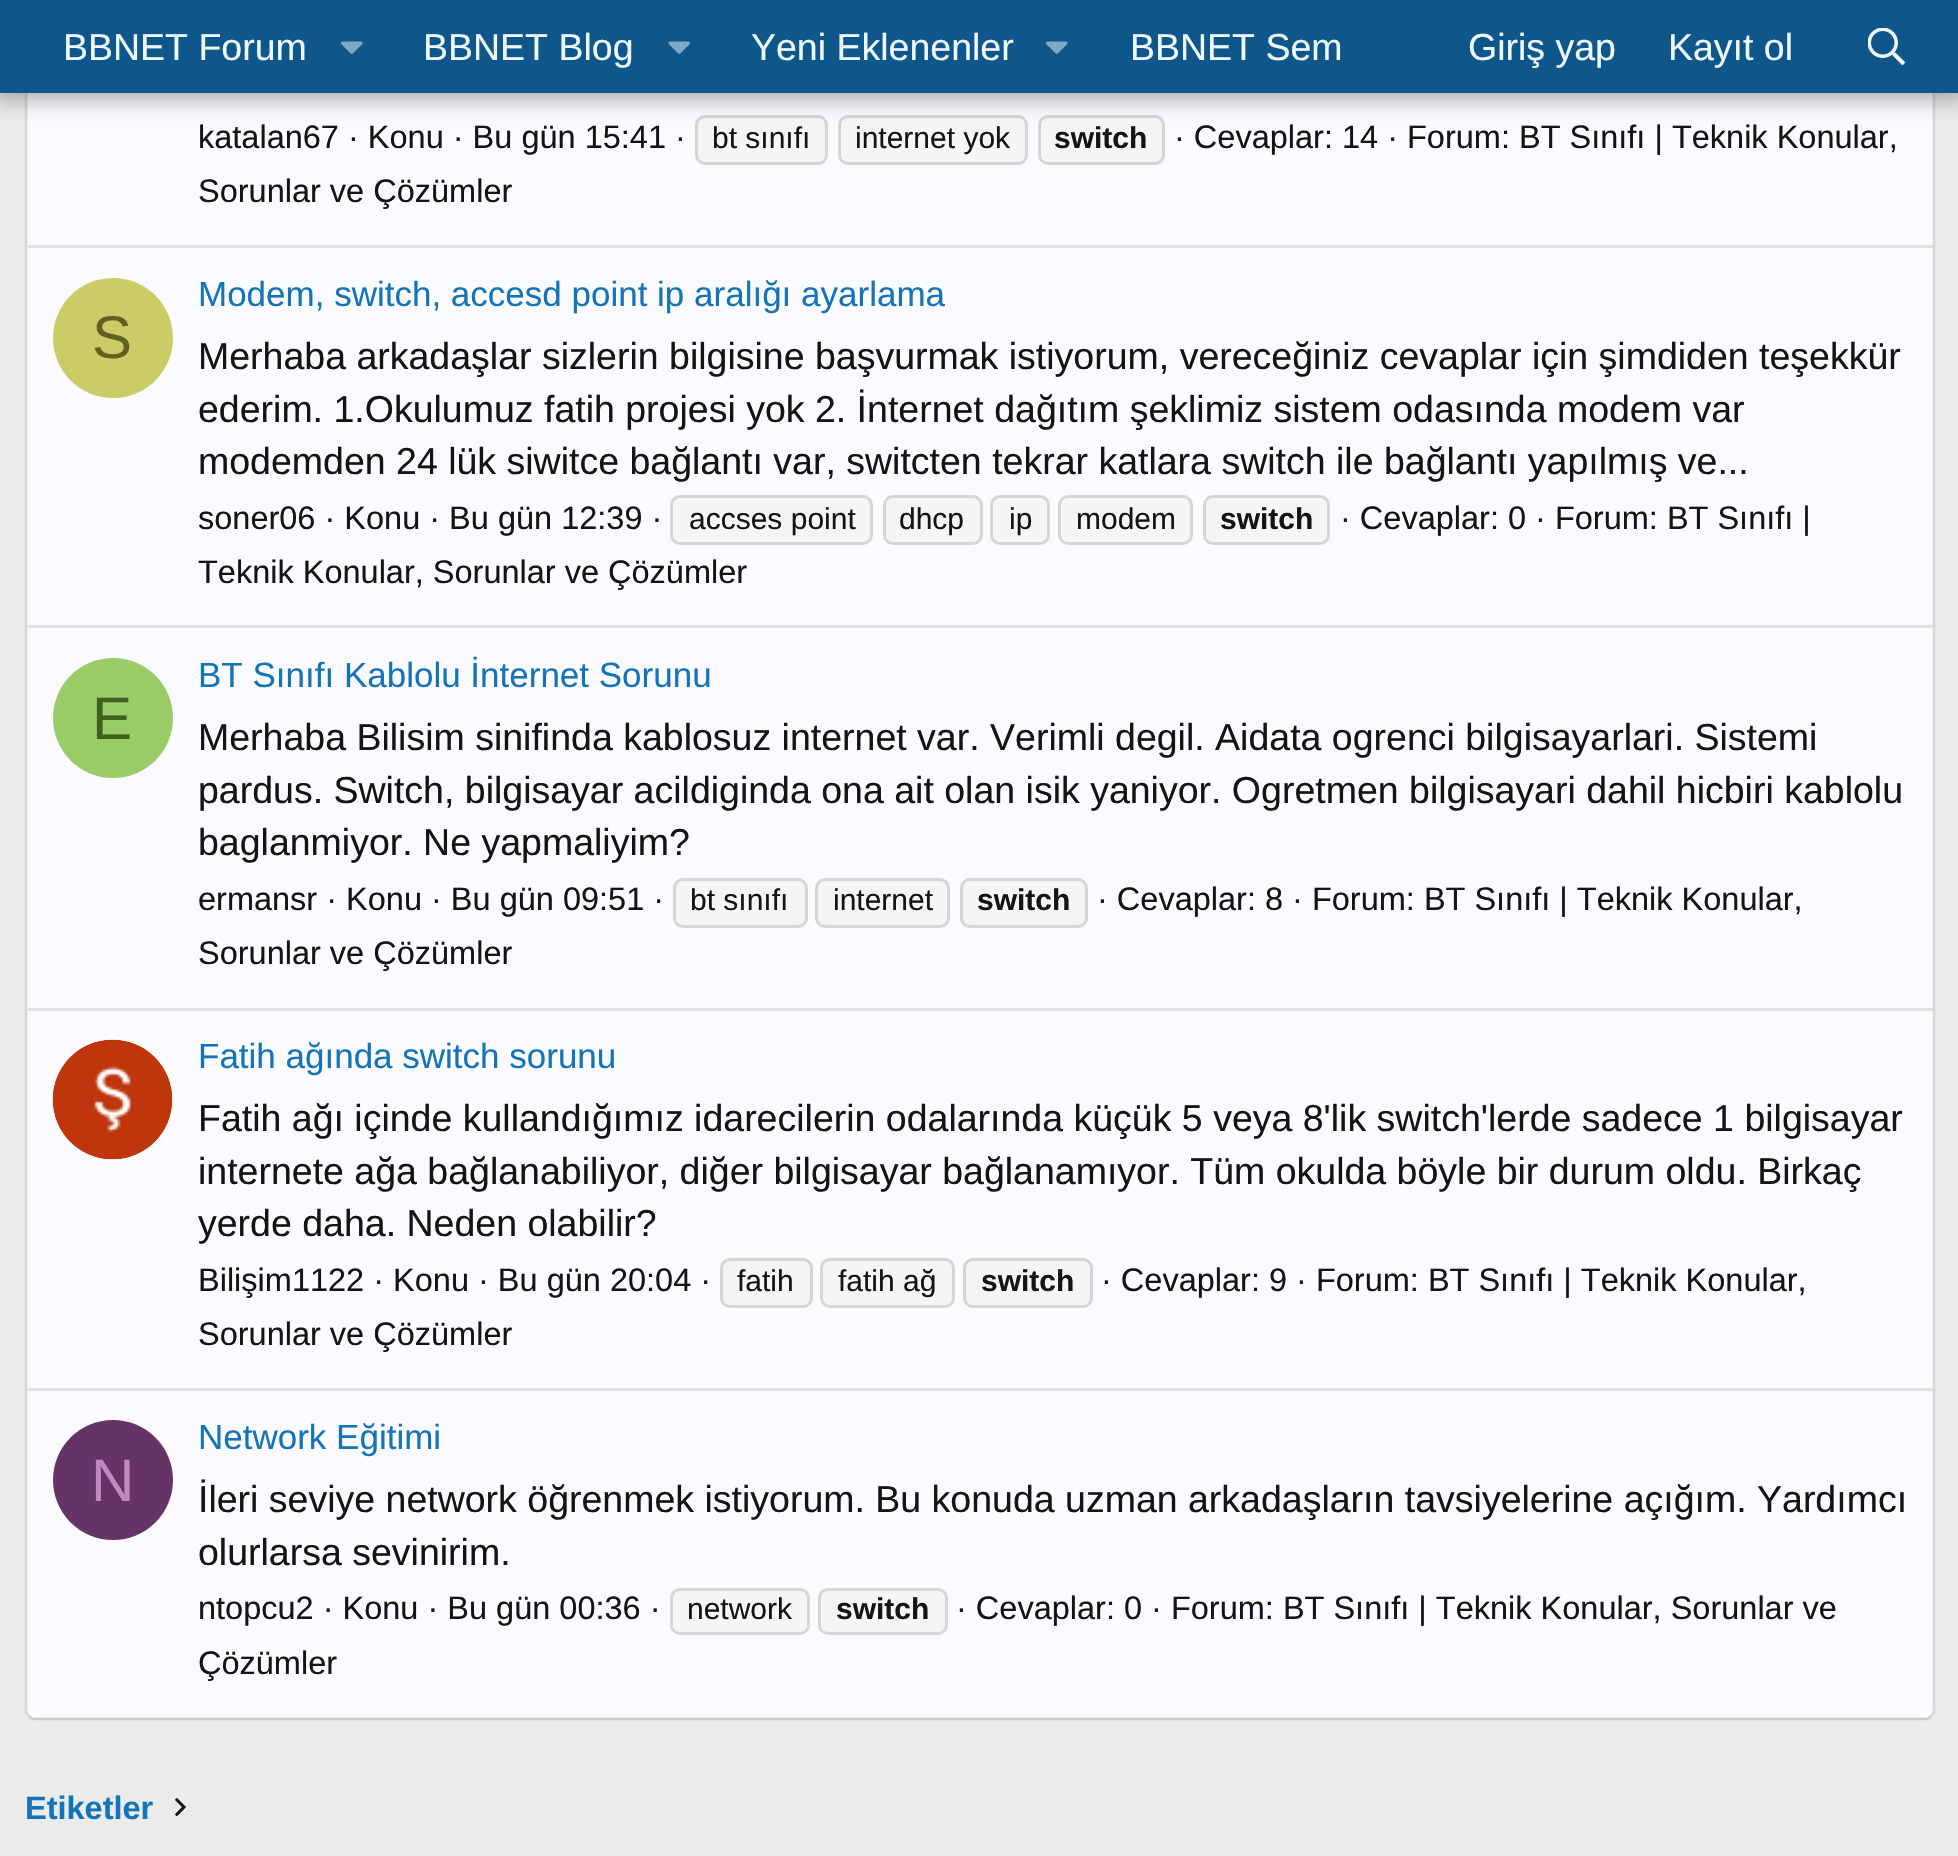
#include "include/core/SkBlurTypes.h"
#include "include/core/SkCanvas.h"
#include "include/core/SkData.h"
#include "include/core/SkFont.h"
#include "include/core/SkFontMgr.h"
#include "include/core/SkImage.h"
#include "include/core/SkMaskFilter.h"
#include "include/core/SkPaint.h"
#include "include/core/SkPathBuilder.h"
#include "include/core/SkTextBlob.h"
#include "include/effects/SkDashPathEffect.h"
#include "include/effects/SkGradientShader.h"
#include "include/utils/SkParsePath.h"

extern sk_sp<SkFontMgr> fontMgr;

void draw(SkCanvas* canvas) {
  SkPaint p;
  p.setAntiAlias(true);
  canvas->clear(SkColorSetRGB(235, 235, 235));
  p.setColor(SkColorSetRGB(250, 250, 255));
  canvas->drawRoundRect(SkRect::MakeLTRB(25, -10, 1935, 1720), 10, 10, p);
  p.setStyle(SkPaint::kStroke_Style);
  p.setStrokeWidth(2.5f);
  p.setColor(SkColorSetRGB(214, 214, 214));
  canvas->drawPath(SkPathBuilder().moveTo(1931, -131).cubicTo(1933, -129.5f, 1934, -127.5f, 1934, -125).lineTo(1934, 1710).cubicTo(1934, 1712.5f, 1933, 1714.5f, 1931, 1716).detach(), p);
  p.setColor(SkColorSetRGB(204, 204, 204));
  canvas->drawPath(SkPathBuilder().moveTo(1931, 1716).cubicTo(1929.5f, 1718, 1927.5f, 1719, 1925, 1719).lineTo(35, 1719).cubicTo(32.5f, 1719, 30.5f, 1718, 29, 1716).detach(), p);
  p.setColor(SkColorSetRGB(214, 214, 214));
  canvas->drawPath(SkPathBuilder().moveTo(29, 1716).cubicTo(27, 1714.5f, 26, 1712.5f, 26, 1710).lineTo(26, -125).cubicTo(26, -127.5f, 27, -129.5f, 29, -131).detach(), p);
  p.setStyle(SkPaint::kFill_Style);
  p.setColor(SkColorSetRGB(245, 245, 245));
  canvas->drawRoundRect(SkRect::MakeLTRB(696.5f, 116.5f, 826.5f, 163.5f), 8.5f, 8.5f, p);
  p.setStyle(SkPaint::kStroke_Style);
  p.setStrokeWidth(3);
  p.setColor(SkColorSetRGB(214, 214, 214));
  canvas->drawRoundRect(SkRect::MakeLTRB(696.5f, 116.5f, 826.5f, 163.5f), 8.5f, 8.5f, p);
  p.setStyle(SkPaint::kFill_Style);
  p.setColor(SkColorSetRGB(245, 245, 245));
  canvas->drawRoundRect(SkRect::MakeLTRB(839.5f, 116.5f, 1026.5f, 163.5f), 8.5f, 8.5f, p);
  p.setStyle(SkPaint::kStroke_Style);
  p.setColor(SkColorSetRGB(214, 214, 214));
  canvas->drawRoundRect(SkRect::MakeLTRB(839.5f, 116.5f, 1026.5f, 163.5f), 8.5f, 8.5f, p);
  p.setStyle(SkPaint::kFill_Style);
  p.setColor(SkColorSetRGB(245, 245, 245));
  canvas->drawRoundRect(SkRect::MakeLTRB(1039.5f, 116.5f, 1163.5f, 163.5f), 8.5f, 8.5f, p);
  p.setStyle(SkPaint::kStroke_Style);
  p.setColor(SkColorSetRGB(214, 214, 214));
  canvas->drawRoundRect(SkRect::MakeLTRB(1039.5f, 116.5f, 1163.5f, 163.5f), 8.5f, 8.5f, p);
  p.setStyle(SkPaint::kFill_Style);
  p.setColor(SkColorSetARGB(77, 0, 0, 0));
  p.setMaskFilter(SkMaskFilter::MakeBlur(kNormal_SkBlurStyle, 10));
  canvas->drawRect(SkRect::MakeLTRB(-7, -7, 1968, 100), p);
  p.setMaskFilter(nullptr);
  p.setColor(SkColorSetRGB(15, 87, 138));
  canvas->drawRect(SkRect::MakeLTRB(0, 0, 1958, 93), p);
  canvas->drawImageRect(SkImages::DeferredFromEncodedData(SkData::MakeFromFileName("images/1.png")), SkRect::MakeLTRB(340, 41, 363, 54), SkSamplingOptions());
  canvas->drawImageRect(SkImages::DeferredFromEncodedData(SkData::MakeFromFileName("images/2.png")), SkRect::MakeLTRB(668, 41, 690, 54), SkSamplingOptions());
  canvas->drawImageRect(SkImages::DeferredFromEncodedData(SkData::MakeFromFileName("images/1.png")), SkRect::MakeLTRB(1045, 41, 1068, 54), SkSamplingOptions());
  canvas->drawImageRect(SkImages::DeferredFromEncodedData(SkData::MakeFromFileName("images/3.png")), SkRect::MakeLTRB(1868, 28, 1905, 65), SkSamplingOptions());
  p.setColor(SkColorSetRGB(224, 224, 224));
  canvas->drawRect(SkRect::MakeLTRB(28, 245, 1933, 248), p);
  p.setColor(SkColorSetRGB(204, 204, 102));
  canvas->drawCircle(113, 338, 60, p);
  p.setColor(SkColorSetRGB(245, 245, 245));
  canvas->drawRoundRect(SkRect::MakeLTRB(671.5f, 496.5f, 871.5f, 543.5f), 8.5f, 8.5f, p);
  p.setStyle(SkPaint::kStroke_Style);
  p.setColor(SkColorSetRGB(214, 214, 214));
  canvas->drawRoundRect(SkRect::MakeLTRB(671.5f, 496.5f, 871.5f, 543.5f), 8.5f, 8.5f, p);
  p.setStyle(SkPaint::kFill_Style);
  p.setColor(SkColorSetRGB(245, 245, 245));
  canvas->drawRoundRect(SkRect::MakeLTRB(884.5f, 496.5f, 981.5f, 543.5f), 8.5f, 8.5f, p);
  p.setStyle(SkPaint::kStroke_Style);
  p.setColor(SkColorSetRGB(214, 214, 214));
  canvas->drawRoundRect(SkRect::MakeLTRB(884.5f, 496.5f, 981.5f, 543.5f), 8.5f, 8.5f, p);
  p.setStyle(SkPaint::kFill_Style);
  p.setColor(SkColorSetRGB(245, 245, 245));
  canvas->drawRoundRect(SkRect::MakeLTRB(991.5f, 496.5f, 1048.5f, 543.5f), 8.5f, 8.5f, p);
  p.setStyle(SkPaint::kStroke_Style);
  p.setColor(SkColorSetRGB(214, 214, 214));
  canvas->drawRoundRect(SkRect::MakeLTRB(991.5f, 496.5f, 1048.5f, 543.5f), 8.5f, 8.5f, p);
  p.setStyle(SkPaint::kFill_Style);
  p.setColor(SkColorSetRGB(245, 245, 245));
  canvas->drawRoundRect(SkRect::MakeLTRB(1059.5f, 496.5f, 1191.5f, 543.5f), 8.5f, 8.5f, p);
  p.setStyle(SkPaint::kStroke_Style);
  p.setColor(SkColorSetRGB(214, 214, 214));
  canvas->drawRoundRect(SkRect::MakeLTRB(1059.5f, 496.5f, 1191.5f, 543.5f), 8.5f, 8.5f, p);
  p.setStyle(SkPaint::kFill_Style);
  p.setColor(SkColorSetRGB(245, 245, 245));
  canvas->drawRoundRect(SkRect::MakeLTRB(1204.5f, 496.5f, 1328.5f, 543.5f), 8.5f, 8.5f, p);
  p.setStyle(SkPaint::kStroke_Style);
  p.setColor(SkColorSetRGB(214, 214, 214));
  canvas->drawRoundRect(SkRect::MakeLTRB(1204.5f, 496.5f, 1328.5f, 543.5f), 8.5f, 8.5f, p);
  p.setStyle(SkPaint::kFill_Style);
  p.setColor(SkColorSetRGB(224, 224, 224));
  canvas->drawRect(SkRect::MakeLTRB(28, 625, 1933, 628), p);
  p.setColor(SkColorSetRGB(153, 204, 102));
  canvas->drawCircle(113, 718, 60, p);
  p.setColor(SkColorSetRGB(245, 245, 245));
  canvas->drawRoundRect(SkRect::MakeLTRB(674.5f, 879.5f, 806.5f, 926.5f), 8.5f, 8.5f, p);
  p.setStyle(SkPaint::kStroke_Style);
  p.setColor(SkColorSetRGB(214, 214, 214));
  canvas->drawRoundRect(SkRect::MakeLTRB(674.5f, 879.5f, 806.5f, 926.5f), 8.5f, 8.5f, p);
  p.setStyle(SkPaint::kFill_Style);
  p.setColor(SkColorSetRGB(245, 245, 245));
  canvas->drawRoundRect(SkRect::MakeLTRB(816.5f, 879.5f, 948.5f, 926.5f), 8.5f, 8.5f, p);
  p.setStyle(SkPaint::kStroke_Style);
  p.setColor(SkColorSetRGB(214, 214, 214));
  canvas->drawRoundRect(SkRect::MakeLTRB(816.5f, 879.5f, 948.5f, 926.5f), 8.5f, 8.5f, p);
  p.setStyle(SkPaint::kFill_Style);
  p.setColor(SkColorSetRGB(245, 245, 245));
  canvas->drawRoundRect(SkRect::MakeLTRB(961.5f, 879.5f, 1086.5f, 926.5f), 8.5f, 8.5f, p);
  p.setStyle(SkPaint::kStroke_Style);
  p.setColor(SkColorSetRGB(214, 214, 214));
  canvas->drawRoundRect(SkRect::MakeLTRB(961.5f, 879.5f, 1086.5f, 926.5f), 8.5f, 8.5f, p);
  p.setStyle(SkPaint::kFill_Style);
  p.setColor(SkColorSetRGB(224, 224, 224));
  canvas->drawRect(SkRect::MakeLTRB(28, 1008, 1933, 1011), p);
  p.setColor(SK_ColorWHITE);
  canvas->drawCircle(113, 1100, 60, p);
  canvas->drawImageRect(SkImages::DeferredFromEncodedData(SkData::MakeFromFileName("images/4.png")), SkRect::MakeLTRB(52, 1039, 173, 1160), SkSamplingOptions());
  p.setColor(SkColorSetRGB(245, 245, 245));
  canvas->drawRoundRect(SkRect::MakeLTRB(721.5f, 1259.5f, 811.5f, 1306.5f), 8.5f, 8.5f, p);
  p.setStyle(SkPaint::kStroke_Style);
  p.setColor(SkColorSetRGB(214, 214, 214));
  canvas->drawRoundRect(SkRect::MakeLTRB(721.5f, 1259.5f, 811.5f, 1306.5f), 8.5f, 8.5f, p);
  p.setStyle(SkPaint::kFill_Style);
  p.setColor(SkColorSetRGB(245, 245, 245));
  canvas->drawRoundRect(SkRect::MakeLTRB(821.5f, 1259.5f, 953.5f, 1306.5f), 8.5f, 8.5f, p);
  p.setStyle(SkPaint::kStroke_Style);
  p.setColor(SkColorSetRGB(214, 214, 214));
  canvas->drawRoundRect(SkRect::MakeLTRB(821.5f, 1259.5f, 953.5f, 1306.5f), 8.5f, 8.5f, p);
  p.setStyle(SkPaint::kFill_Style);
  p.setColor(SkColorSetRGB(245, 245, 245));
  canvas->drawRoundRect(SkRect::MakeLTRB(964.5f, 1259.5f, 1091.5f, 1306.5f), 8.5f, 8.5f, p);
  p.setStyle(SkPaint::kStroke_Style);
  p.setColor(SkColorSetRGB(214, 214, 214));
  canvas->drawRoundRect(SkRect::MakeLTRB(964.5f, 1259.5f, 1091.5f, 1306.5f), 8.5f, 8.5f, p);
  p.setStyle(SkPaint::kFill_Style);
  p.setColor(SkColorSetRGB(224, 224, 224));
  canvas->drawRect(SkRect::MakeLTRB(28, 1388, 1933, 1391), p);
  p.setColor(SkColorSetRGB(102, 51, 102));
  canvas->drawCircle(113, 1480, 60, p);
  p.setColor(SkColorSetRGB(245, 245, 245));
  canvas->drawRoundRect(SkRect::MakeLTRB(671.5f, 1589.5f, 808.5f, 1633.5f), 8.5f, 8.5f, p);
  p.setStyle(SkPaint::kStroke_Style);
  p.setColor(SkColorSetRGB(214, 214, 214));
  canvas->drawRoundRect(SkRect::MakeLTRB(671.5f, 1589.5f, 808.5f, 1633.5f), 8.5f, 8.5f, p);
  p.setStyle(SkPaint::kFill_Style);
  p.setColor(SkColorSetRGB(245, 245, 245));
  canvas->drawRoundRect(SkRect::MakeLTRB(819.5f, 1589.5f, 946.5f, 1633.5f), 8.5f, 8.5f, p);
  p.setStyle(SkPaint::kStroke_Style);
  p.setColor(SkColorSetRGB(214, 214, 214));
  canvas->drawRoundRect(SkRect::MakeLTRB(819.5f, 1589.5f, 946.5f, 1633.5f), 8.5f, 8.5f, p);
  canvas->drawImageRect(SkImages::DeferredFromEncodedData(SkData::MakeFromFileName("images/5.png")), SkRect::MakeLTRB(175, 1798, 186, 1817), SkSamplingOptions());
  SkFont font1(fontMgr->matchFamilyStyle("Liberation Sans", SkFontStyle::Normal()), 37.5f);
  font1.setSubpixel(true);
  p.setStyle(SkPaint::kFill_Style);
  p.setColor(SkColorSetRGB(238, 248, 255));
  canvas->drawString("BBNET Forum", 63, 60, font1, p);
  canvas->drawString("BBNET Blog", 423, 60, font1, p);
  canvas->drawString("Yeni Eklenenler", 751, 60, font1, p);
  canvas->drawString("BBNET Sem", 1130, 60, font1, p);
  canvas->drawString("Giriş yap", 1468, 60, font1, p);
  canvas->drawString("Kayıt ol", 1668, 60, font1, p);
  SkFont font2(fontMgr->matchFamilyStyle("Liberation Sans", SkFontStyle::Normal()), 32.5f);
  font2.setSubpixel(true);
  p.setColor(SkColorSetRGB(20, 20, 20));
  canvas->drawString("katalan67 · Konu · Bu gün 15:41 ·", 198, 148, font2, p);
  SkFont font3(fontMgr->matchFamilyStyle("Liberation Sans", SkFontStyle::Normal()), 30);
  font3.setSubpixel(true);
  canvas->drawString("bt sınıfı", 712, 148, font3, p);
  canvas->drawString("internet yok", 855, 148, font3, p);
  SkFont font4(fontMgr->matchFamilyStyle("Liberation Sans", SkFontStyle::Bold()), 30);
  font4.setSubpixel(true);
  canvas->drawString("switch", 1054, 148, font4, p);
  canvas->drawString("· Cevaplar: 14 · Forum: BT Sınıfı | Teknik Konular,", 1174, 148, font2, p);
  canvas->drawString("Sorunlar ve Çözümler", 198, 202, font2, p);
  SkFont font5(fontMgr->matchFamilyStyle("Liberation Sans", SkFontStyle::Normal()), 60);
  font5.setSubpixel(true);
  p.setColor(SkColorSetRGB(96, 96, 32));
  canvas->drawString("S", 92, 358, font5, p);
  SkFont font6(fontMgr->matchFamilyStyle("Liberation Sans", SkFontStyle::Normal()), 35);
  font6.setSubpixel(true);
  p.setColor(SkColorSetRGB(20, 116, 184));
  canvas->drawString("Modem, switch, accesd point ip aralığı ayarlama", 198, 306, font6, p);
  p.setColor(SkColorSetRGB(20, 20, 20));
  canvas->drawString("Merhaba arkadaşlar sizlerin bilgisine başvurmak istiyorum, vereceğiniz cevaplar için şimdiden teşekkür", 198, 369, font1, p);
  canvas->drawString("ederim. 1.Okulumuz fatih projesi yok 2. İnternet dağıtım şeklimiz sistem odasında modem var", 198, 422, font1, p);
  canvas->drawString("modemden 24 lük siwitce bağlantı var, switcten tekrar katlara switch ile bağlantı yapılmış ve...", 198, 474, font1, p);
  canvas->drawString("soner06 · Konu · Bu gün 12:39 ·", 198, 529, font2, p);
  canvas->drawString("accses point", 689, 529, font3, p);
  canvas->drawString("dhcp", 899, 529, font3, p);
  canvas->drawString("ip", 1009, 529, font3, p);
  canvas->drawString("modem", 1076, 529, font3, p);
  canvas->drawString("switch", 1220, 529, font4, p);
  canvas->drawString("· Cevaplar: 0 · Forum: BT Sınıfı |", 1340, 529, font2, p);
  canvas->drawString("Teknik Konular, Sorunlar ve Çözümler", 198, 583, font2, p);
  p.setColor(SkColorSetRGB(64, 96, 32));
  canvas->drawString("E", 92, 739, font5, p);
  p.setColor(SkColorSetRGB(20, 116, 184));
  canvas->drawString("BT Sınıfı Kablolu İnternet Sorunu", 198, 687, font6, p);
  p.setColor(SkColorSetRGB(20, 20, 20));
  canvas->drawString("Merhaba Bilisim sinifinda kablosuz internet var. Verimli degil. Aidata ogrenci bilgisayarlari. Sistemi", 198, 750, font1, p);
  canvas->drawString("pardus. Switch, bilgisayar acildiginda ona ait olan isik yaniyor. Ogretmen bilgisayari dahil hicbiri kablolu", 198, 803, font1, p);
  canvas->drawString("baglanmiyor. Ne yapmaliyim?", 198, 855, font1, p);
  canvas->drawString("ermansr · Konu · Bu gün 09:51 ·", 198, 910, font2, p);
  canvas->drawString("bt sınıfı", 690, 910, font3, p);
  canvas->drawString("internet", 833, 910, font3, p);
  canvas->drawString("switch", 977, 910, font4, p);
  canvas->drawString("· Cevaplar: 8 · Forum: BT Sınıfı | Teknik Konular,", 1097, 910, font2, p);
  canvas->drawString("Sorunlar ve Çözümler", 198, 964, font2, p);
  p.setColor(SkColorSetRGB(20, 116, 184));
  canvas->drawString("Fatih ağında switch sorunu", 198, 1068, font6, p);
  p.setColor(SkColorSetRGB(20, 20, 20));
  canvas->drawString("Fatih ağı içinde kullandığımız idarecilerin odalarında küçük 5 veya 8'lik switch'lerde sadece 1 bilgisayar", 198, 1131, font1, p);
  canvas->drawString("internete ağa bağlanabiliyor, diğer bilgisayar bağlanamıyor. Tüm okulda böyle bir durum oldu. Birkaç", 198, 1184, font1, p);
  canvas->drawString("yerde daha. Neden olabilir?", 198, 1236, font1, p);
  canvas->drawString("Bilişim1122 · Konu · Bu gün 20:04 ·", 198, 1291, font2, p);
  canvas->drawString("fatih", 737, 1291, font3, p);
  canvas->drawString("fatih ağ", 838, 1291, font3, p);
  canvas->drawString("switch", 981, 1291, font4, p);
  canvas->drawString("· Cevaplar: 9 · Forum: BT Sınıfı | Teknik Konular,", 1101, 1291, font2, p);
  canvas->drawString("Sorunlar ve Çözümler", 198, 1345, font2, p);
  p.setColor(SkColorSetRGB(195, 136, 195));
  canvas->drawString("N", 91, 1501, font5, p);
  p.setColor(SkColorSetRGB(20, 116, 184));
  canvas->drawString("Network Eğitimi", 198, 1449, font6, p);
  p.setColor(SkColorSetRGB(20, 20, 20));
  canvas->drawString("İleri seviye network öğrenmek istiyorum. Bu konuda uzman arkadaşların tavsiyelerine açığım. Yardımcı", 198, 1512, font1, p);
  canvas->drawString("olurlarsa sevinirim.", 198, 1565, font1, p);
  canvas->drawString("ntopcu2 · Konu · Bu gün 00:36 ·", 198, 1619, font2, p);
  canvas->drawString("network", 687, 1619, font3, p);
  canvas->drawString("switch", 836, 1619, font4, p);
  canvas->drawString("· Cevaplar: 0 · Forum: BT Sınıfı | Teknik Konular, Sorunlar ve", 956, 1619, font2, p);
  canvas->drawString("Çözümler", 198, 1674, font2, p);
  SkFont font7(fontMgr->matchFamilyStyle("Liberation Sans", SkFontStyle::Bold()), 32.5f);
  font7.setSubpixel(true);
  p.setColor(SkColorSetRGB(20, 116, 184));
  canvas->drawString("Etiketler", 25, 1819, font7, p);
}
